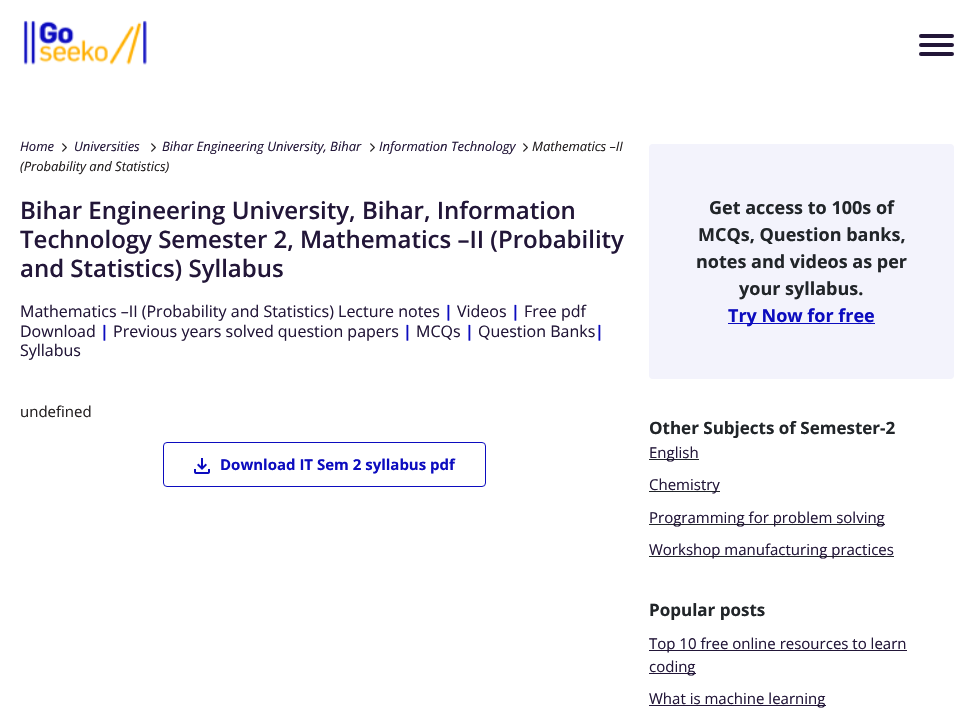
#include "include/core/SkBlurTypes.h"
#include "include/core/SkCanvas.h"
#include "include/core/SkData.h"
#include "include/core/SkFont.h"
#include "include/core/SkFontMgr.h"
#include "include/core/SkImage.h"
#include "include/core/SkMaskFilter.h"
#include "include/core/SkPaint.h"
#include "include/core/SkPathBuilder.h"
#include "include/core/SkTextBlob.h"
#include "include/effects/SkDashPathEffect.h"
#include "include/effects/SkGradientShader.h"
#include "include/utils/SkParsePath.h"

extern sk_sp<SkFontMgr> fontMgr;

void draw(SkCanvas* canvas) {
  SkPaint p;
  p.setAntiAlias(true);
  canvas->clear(SK_ColorWHITE);
  canvas->drawImageRect(SkImages::DeferredFromEncodedData(SkData::MakeFromFileName("images/1.png")), SkRect::MakeLTRB(23, 20, 147, 65), SkSamplingOptions());
  p.setColor(SkColorSetRGB(34, 22, 56));
  canvas->drawRoundRect(SkRect::MakeLTRB(919, 34, 954, 38), 2, 2, p);
  canvas->drawRoundRect(SkRect::MakeLTRB(919, 43, 954, 47), 2, 2, p);
  canvas->drawRoundRect(SkRect::MakeLTRB(919, 52, 954, 56), 2, 2, p);
  canvas->drawImageRect(SkImages::DeferredFromEncodedData(SkData::MakeFromFileName("images/2.png")), SkRect::MakeLTRB(62, 143, 67, 152), SkSamplingOptions());
  canvas->drawImageRect(SkImages::DeferredFromEncodedData(SkData::MakeFromFileName("images/2.png")), SkRect::MakeLTRB(151, 143, 156, 152), SkSamplingOptions());
  canvas->drawImageRect(SkImages::DeferredFromEncodedData(SkData::MakeFromFileName("images/2.png")), SkRect::MakeLTRB(370, 143, 375, 152), SkSamplingOptions());
  canvas->drawImageRect(SkImages::DeferredFromEncodedData(SkData::MakeFromFileName("images/2.png")), SkRect::MakeLTRB(523, 143, 528, 152), SkSamplingOptions());
  p.setStyle(SkPaint::kStroke_Style);
  p.setStrokeWidth(1);
  p.setColor(SkColorSetRGB(12, 12, 191));
  canvas->drawRoundRect(SkRect::MakeLTRB(163.5f, 442.5f, 485.5f, 486.5f), 3.5f, 3.5f, p);
  canvas->drawImageRect(SkImages::DeferredFromEncodedData(SkData::MakeFromFileName("images/3.png")), SkRect::MakeLTRB(194, 458, 210, 474), SkSamplingOptions());
  p.setStyle(SkPaint::kFill_Style);
  p.setColor(SkColorSetRGB(243, 243, 252));
  canvas->drawRoundRect(SkRect::MakeLTRB(649, 144, 954, 379), 4, 4, p);
  p.setColor(SkColorSetRGB(12, 12, 191));
  canvas->drawRect(SkRect::MakeLTRB(728, 323, 875, 324), p);
  p.setColor(SkColorSetRGB(33, 37, 41));
  canvas->drawRect(SkRect::MakeLTRB(649, 459, 699, 460), p);
  canvas->drawRect(SkRect::MakeLTRB(649, 491, 720, 492), p);
  canvas->drawRect(SkRect::MakeLTRB(649, 524, 885, 525), p);
  canvas->drawRect(SkRect::MakeLTRB(649, 556, 894, 557), p);
  p.setColor(SkColorSetRGB(34, 22, 56));
  canvas->drawRect(SkRect::MakeLTRB(649, 650, 907, 651), p);
  canvas->drawRect(SkRect::MakeLTRB(649, 673, 696, 674), p);
  canvas->drawRect(SkRect::MakeLTRB(649, 705, 826, 706), p);
  SkFont font1(fontMgr->matchFamilyStyle("Open Sans", SkFontStyle::Italic()), 13);
  font1.setSubpixel(true);
  canvas->drawString("Home", 20, 151, font1, p);
  canvas->drawString("Universities", 74, 151, font1, p);
  canvas->drawString("Bihar Engineering University, Bihar", 162, 151, font1, p);
  canvas->drawString("Information Technology", 379, 151, font1, p);
  p.setColor(SkColorSetRGB(35, 31, 32));
  canvas->drawString("Mathematics –II", 532, 151, font1, p);
  canvas->drawString("(Probability and Statistics)", 20, 171, font1, p);
  SkFont font2(fontMgr->matchFamilyStyle("Open Sans", SkFontStyle(600, SkFontStyle::kNormal_Width, SkFontStyle::kUpright_Slant)), 24);
  font2.setSubpixel(true);
  p.setColor(SkColorSetRGB(34, 22, 56));
  canvas->drawString("Bihar Engineering University, Bihar, Information", 20, 219, font2, p);
  canvas->drawString("Technology Semester 2, Mathematics –II (Probability", 20, 248, font2, p);
  canvas->drawString("and Statistics) Syllabus", 20, 277, font2, p);
  SkFont font3(fontMgr->matchFamilyStyle("Open Sans", SkFontStyle::Normal()), 16);
  font3.setSubpixel(true);
  canvas->drawString("Mathematics –II (Probability and Statistics) Lecture notes", 20, 317, font3, p);
  SkFont font4(fontMgr->matchFamilyStyle("Open Sans", SkFontStyle::Bold()), 16);
  font4.setSubpixel(true);
  p.setColor(SkColorSetRGB(12, 12, 191));
  canvas->drawString("|", 444, 317, font4, p);
  p.setColor(SkColorSetRGB(34, 22, 56));
  canvas->drawString("Videos", 457, 317, font3, p);
  p.setColor(SkColorSetRGB(12, 12, 191));
  canvas->drawString("|", 511, 317, font4, p);
  p.setColor(SkColorSetRGB(34, 22, 56));
  canvas->drawString("Free pdf", 524, 317, font3, p);
  canvas->drawString("Download", 20, 337, font3, p);
  p.setColor(SkColorSetRGB(12, 12, 191));
  canvas->drawString("|", 100, 337, font4, p);
  p.setColor(SkColorSetRGB(34, 22, 56));
  canvas->drawString("Previous years solved question papers", 113, 337, font3, p);
  p.setColor(SkColorSetRGB(12, 12, 191));
  canvas->drawString("|", 403, 337, font4, p);
  p.setColor(SkColorSetRGB(34, 22, 56));
  canvas->drawString("MCQs", 416, 337, font3, p);
  p.setColor(SkColorSetRGB(12, 12, 191));
  canvas->drawString("|", 465, 337, font4, p);
  p.setColor(SkColorSetRGB(34, 22, 56));
  canvas->drawString("Question Banks", 478, 337, font3, p);
  p.setColor(SkColorSetRGB(12, 12, 191));
  canvas->drawString("|", 595, 337, font4, p);
  p.setColor(SkColorSetRGB(34, 22, 56));
  canvas->drawString("Syllabus", 20, 356, font3, p);
  SkFont font5(fontMgr->matchFamilyStyle("Open Sans", SkFontStyle::Normal()), 15);
  font5.setSubpixel(true);
  p.setColor(SkColorSetRGB(35, 31, 32));
  canvas->drawString("undefined", 20, 417, font5, p);
  SkFont font6(fontMgr->matchFamilyStyle("Open Sans", SkFontStyle::Bold()), 15);
  font6.setSubpixel(true);
  p.setColor(SkColorSetRGB(12, 12, 191));
  canvas->drawString("Download IT Sem 2 syllabus pdf", 220, 470, font6, p);
  SkFont font7(fontMgr->matchFamilyStyle("Open Sans", SkFontStyle::Bold()), 18);
  font7.setSubpixel(true);
  p.setColor(SkColorSetRGB(33, 37, 41));
  canvas->drawString("Get access to 100s of", 709, 214, font7, p);
  canvas->drawString("MCQs, Question banks,", 698, 241, font7, p);
  canvas->drawString("notes and videos as per", 696, 268, font7, p);
  canvas->drawString("your syllabus.", 739, 295, font7, p);
  p.setColor(SkColorSetRGB(12, 12, 191));
  canvas->drawString("Try Now for free", 728, 322, font7, p);
  SkFont font8(fontMgr->matchFamilyStyle("Open Sans", SkFontStyle::Bold()), 17);
  font8.setSubpixel(true);
  p.setColor(SkColorSetRGB(33, 37, 41));
  canvas->drawString("Other Subjects of Semester-2", 649, 434, font8, p);
  p.setColor(SkColorSetRGB(34, 22, 56));
  canvas->drawString("English", 649, 458, font5, p);
  canvas->drawString("Chemistry", 649, 490, font5, p);
  canvas->drawString("Programming for problem solving", 649, 523, font5, p);
  canvas->drawString("Workshop manufacturing practices", 649, 555, font5, p);
  p.setColor(SkColorSetRGB(33, 37, 41));
  canvas->drawString("Popular posts", 649, 616, font8, p);
  p.setColor(SkColorSetRGB(34, 22, 56));
  canvas->drawString("Top 10 free online resources to learn", 649, 649, font5, p);
  canvas->drawString("coding", 649, 672, font5, p);
  canvas->drawString("What is machine learning", 649, 704, font5, p);
}
